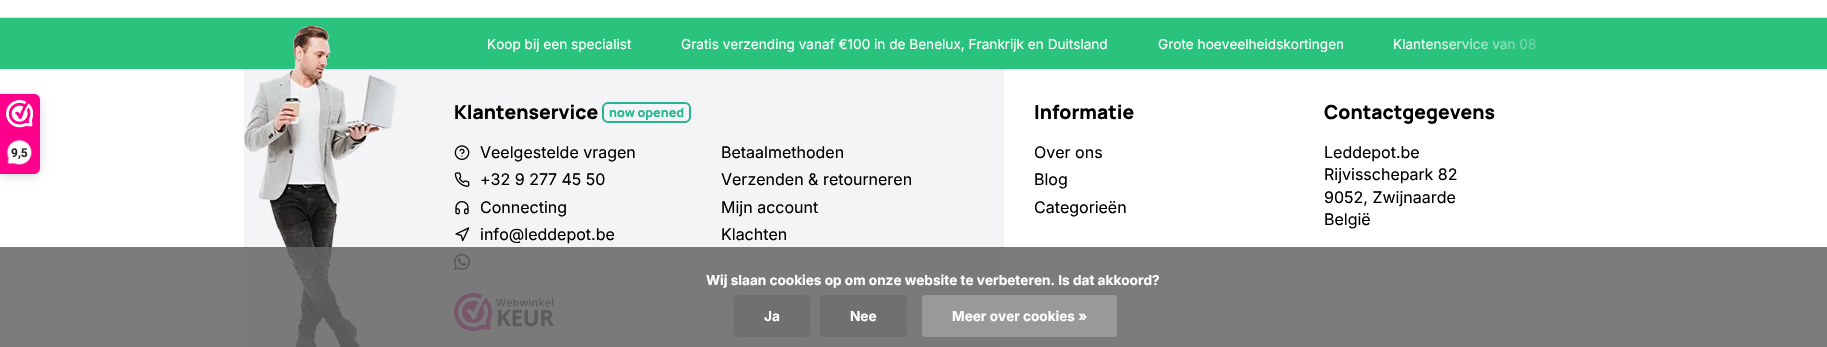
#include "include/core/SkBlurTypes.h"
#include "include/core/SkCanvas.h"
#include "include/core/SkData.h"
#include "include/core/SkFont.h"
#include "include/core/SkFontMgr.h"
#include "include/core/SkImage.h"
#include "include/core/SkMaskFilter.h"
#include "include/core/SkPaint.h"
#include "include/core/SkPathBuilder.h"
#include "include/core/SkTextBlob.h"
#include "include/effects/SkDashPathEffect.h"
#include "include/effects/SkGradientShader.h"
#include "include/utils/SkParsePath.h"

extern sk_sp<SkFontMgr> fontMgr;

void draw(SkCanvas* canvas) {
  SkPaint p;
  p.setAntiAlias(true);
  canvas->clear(SK_ColorWHITE);
  p.setColor(SkColorSetARGB(38, 0, 0, 0));
  p.setMaskFilter(SkMaskFilter::MakeBlur(kNormal_SkBlurStyle, 5));
  canvas->drawRoundRect(SkRect::MakeLTRB(0, 96, 40, 176), 6, 6, p);
  p.setMaskFilter(nullptr);
  p.setColor(SkColorSetRGB(254, 0, 140));
  canvas->drawPath(SkPathBuilder().moveTo(0, 94).lineTo(34, 94).cubicTo(37.5f, 94, 40, 96.5f, 40, 100).lineTo(40, 168).cubicTo(40, 171.5f, 37.5f, 174, 34, 174).lineTo(0, 174).close().detach(), p);
  canvas->drawImageRect(SkImages::DeferredFromEncodedData(SkData::MakeFromFileName("images/1.png")), SkRect::MakeLTRB(6, 100, 33, 128), SkSamplingOptions());
  p.setColor(SkColorSetRGB(216, 0, 119));
  canvas->drawRect(SkRect::MakeLTRB(0, 133, 39, 134), p);
  canvas->drawImageRect(SkImages::DeferredFromEncodedData(SkData::MakeFromFileName("images/2.png")), SkRect::MakeLTRB(6, 139, 32, 165), SkSamplingOptions());
  p.setColor(SkColorSetRGB(42, 195, 125));
  canvas->drawRect(SkRect::MakeLTRB(0, 18, 1827, 69), p);
  p.setColor(SkColorSetRGB(225, 225, 225));
  canvas->drawRect(SkRect::MakeLTRB(0, 17, 1827, 18), p);
  p.setColor(SkColorSetRGB(244, 244, 246));
  canvas->drawRect(SkRect::MakeLTRB(244, 69, 1004, 347), p);
  canvas->drawImageRect(SkImages::DeferredFromEncodedData(SkData::MakeFromFileName("images/3.png")), SkRect::MakeLTRB(244, 26, 397, 347), SkSamplingOptions());
  p.setStyle(SkPaint::kStroke_Style);
  p.setStrokeWidth(2);
  p.setColor(SkColorSetRGB(36, 182, 145));
  canvas->drawRoundRect(SkRect::MakeLTRB(603, 103, 690, 122), 5, 5, p);
  canvas->drawImageRect(SkImages::DeferredFromEncodedData(SkData::MakeFromFileName("images/4.png")), SkRect::MakeLTRB(454, 145, 470, 160), SkSamplingOptions());
  canvas->drawImageRect(SkImages::DeferredFromEncodedData(SkData::MakeFromFileName("images/5.png")), SkRect::MakeLTRB(454, 172, 470, 187), SkSamplingOptions());
  canvas->drawImageRect(SkImages::DeferredFromEncodedData(SkData::MakeFromFileName("images/6.png")), SkRect::MakeLTRB(455, 201, 469, 215), SkSamplingOptions());
  canvas->drawImageRect(SkImages::DeferredFromEncodedData(SkData::MakeFromFileName("images/7.png")), SkRect::MakeLTRB(455, 227, 470, 242), SkSamplingOptions());
  canvas->drawImageRect(SkImages::DeferredFromEncodedData(SkData::MakeFromFileName("images/8.png")), SkRect::MakeLTRB(454, 254, 470, 270), SkSamplingOptions());
  canvas->drawImageRect(SkImages::DeferredFromEncodedData(SkData::MakeFromFileName("images/9.png")), SkRect::MakeLTRB(454, 293, 554, 331), SkSamplingOptions());
  p.setStyle(SkPaint::kFill_Style);
  p.setColor(SkColorSetARGB(217, 100, 100, 100));
  canvas->drawRect(SkRect::MakeLTRB(0, 247, 1827, 347), p);
  p.setColor(SkColorSetRGB(112, 112, 112));
  canvas->drawRoundRect(SkRect::MakeLTRB(734, 295, 810, 337), 3, 3, p);
  canvas->drawRoundRect(SkRect::MakeLTRB(820, 295, 907, 337), 3, 3, p);
  p.setColor(SkColorSetRGB(153, 153, 153));
  canvas->drawRoundRect(SkRect::MakeLTRB(922, 295, 1117, 337), 3, 3, p);
  SkFont font1(fontMgr->matchFamilyStyle("Roboto", SkFontStyle::Bold()), 12);
  font1.setSubpixel(true);
  p.setColor(SkColorSetRGB(39, 38, 38));
  canvas->drawString("9,5", 11, 157, font1, p);
  SkFont font2(fontMgr->matchFamilyStyle("Inter", SkFontStyle::Normal()), 13.6f);
  font2.setSubpixel(true);
  p.setColor(SK_ColorWHITE);
  canvas->drawString("Koop bij een specialist", 487, 49, font2, p);
  canvas->drawString("Gratis verzending vanaf €100 in de Benelux, Frankrijk en Duitsland", 681, 49, font2, p);
  canvas->drawString("Grote hoeveelheidskortingen", 1158, 49, font2, p);
  canvas->drawString("Klantenservice van 08", 1393, 49, font2, p);
  {
    const SkColor colors[] = {SkColorSetARGB(0, 42, 195, 125), SkColorSetRGB(42, 195, 125)};
    const float stops[] = {0, 1};
    const SkPoint ends[] = {{1414, 44}, {1584, 43}};
    p.setShader(SkGradientShader::MakeLinear(ends, colors, stops, 2, SkTileMode::kClamp));
    p.setAlpha(255);
  }
  canvas->drawRect(SkRect::MakeLTRB(1418, 38, 1536, 50), p);
  SkFont font3(fontMgr->matchFamilyStyle("Manrope", SkFontStyle(200, SkFontStyle::kNormal_Width, SkFontStyle::kUpright_Slant)), 19.25f);
  font3.setSubpixel(true);
  p.setShader(nullptr);
  p.setColor(SK_ColorBLACK);
  canvas->drawString("Klantenservice", 454, 119, font3, p);
  SkFont font4(fontMgr->matchFamilyStyle("Manrope", SkFontStyle(200, SkFontStyle::kNormal_Width, SkFontStyle::kUpright_Slant)), 12.5f);
  font4.setSubpixel(true);
  p.setColor(SkColorSetRGB(36, 182, 145));
  canvas->drawString("now opened", 609, 117, font4, p);
  SkFont font5(fontMgr->matchFamilyStyle("Inter", SkFontStyle::Normal()), 16);
  font5.setSubpixel(true);
  p.setColor(SK_ColorBLACK);
  canvas->drawString("Veelgestelde vragen", 480, 158, font5, p);
  canvas->drawString("+32 9 277 45 50", 480, 185, font5, p);
  canvas->drawString("Connecting", 480, 213, font5, p);
  canvas->drawString("info@leddepot.be", 480, 240, font5, p);
  canvas->drawString("Betaalmethoden", 721, 158, font5, p);
  canvas->drawString("Verzenden & retourneren", 721, 185, font5, p);
  canvas->drawString("Mijn account", 721, 213, font5, p);
  canvas->drawString("Klachten", 721, 240, font5, p);
  canvas->drawString("Informatie", 1034, 119, font3, p);
  canvas->drawString("Over ons", 1034, 158, font5, p);
  canvas->drawString("Blog", 1034, 185, font5, p);
  canvas->drawString("Categorieën", 1034, 213, font5, p);
  canvas->drawString("Contactgegevens", 1324, 119, font3, p);
  canvas->drawString("Leddepot.be", 1324, 158, font5, p);
  canvas->drawString("Rijvisschepark 82", 1324, 180, font5, p);
  canvas->drawString("9052, Zwijnaarde", 1324, 203, font5, p);
  canvas->drawString("België", 1324, 225, font5, p);
  SkFont font6(fontMgr->matchFamilyStyle("Inter", SkFontStyle::Bold()), 13.6f);
  font6.setSubpixel(true);
  p.setColor(SK_ColorWHITE);
  canvas->drawString("Wij slaan cookies op om onze website te verbeteren. Is dat akkoord?", 706, 285, font6, p);
  canvas->drawString("Ja", 764, 321, font6, p);
  canvas->drawString("Nee", 850, 321, font6, p);
  canvas->drawString("Meer over cookies »", 952, 321, font6, p);
}
